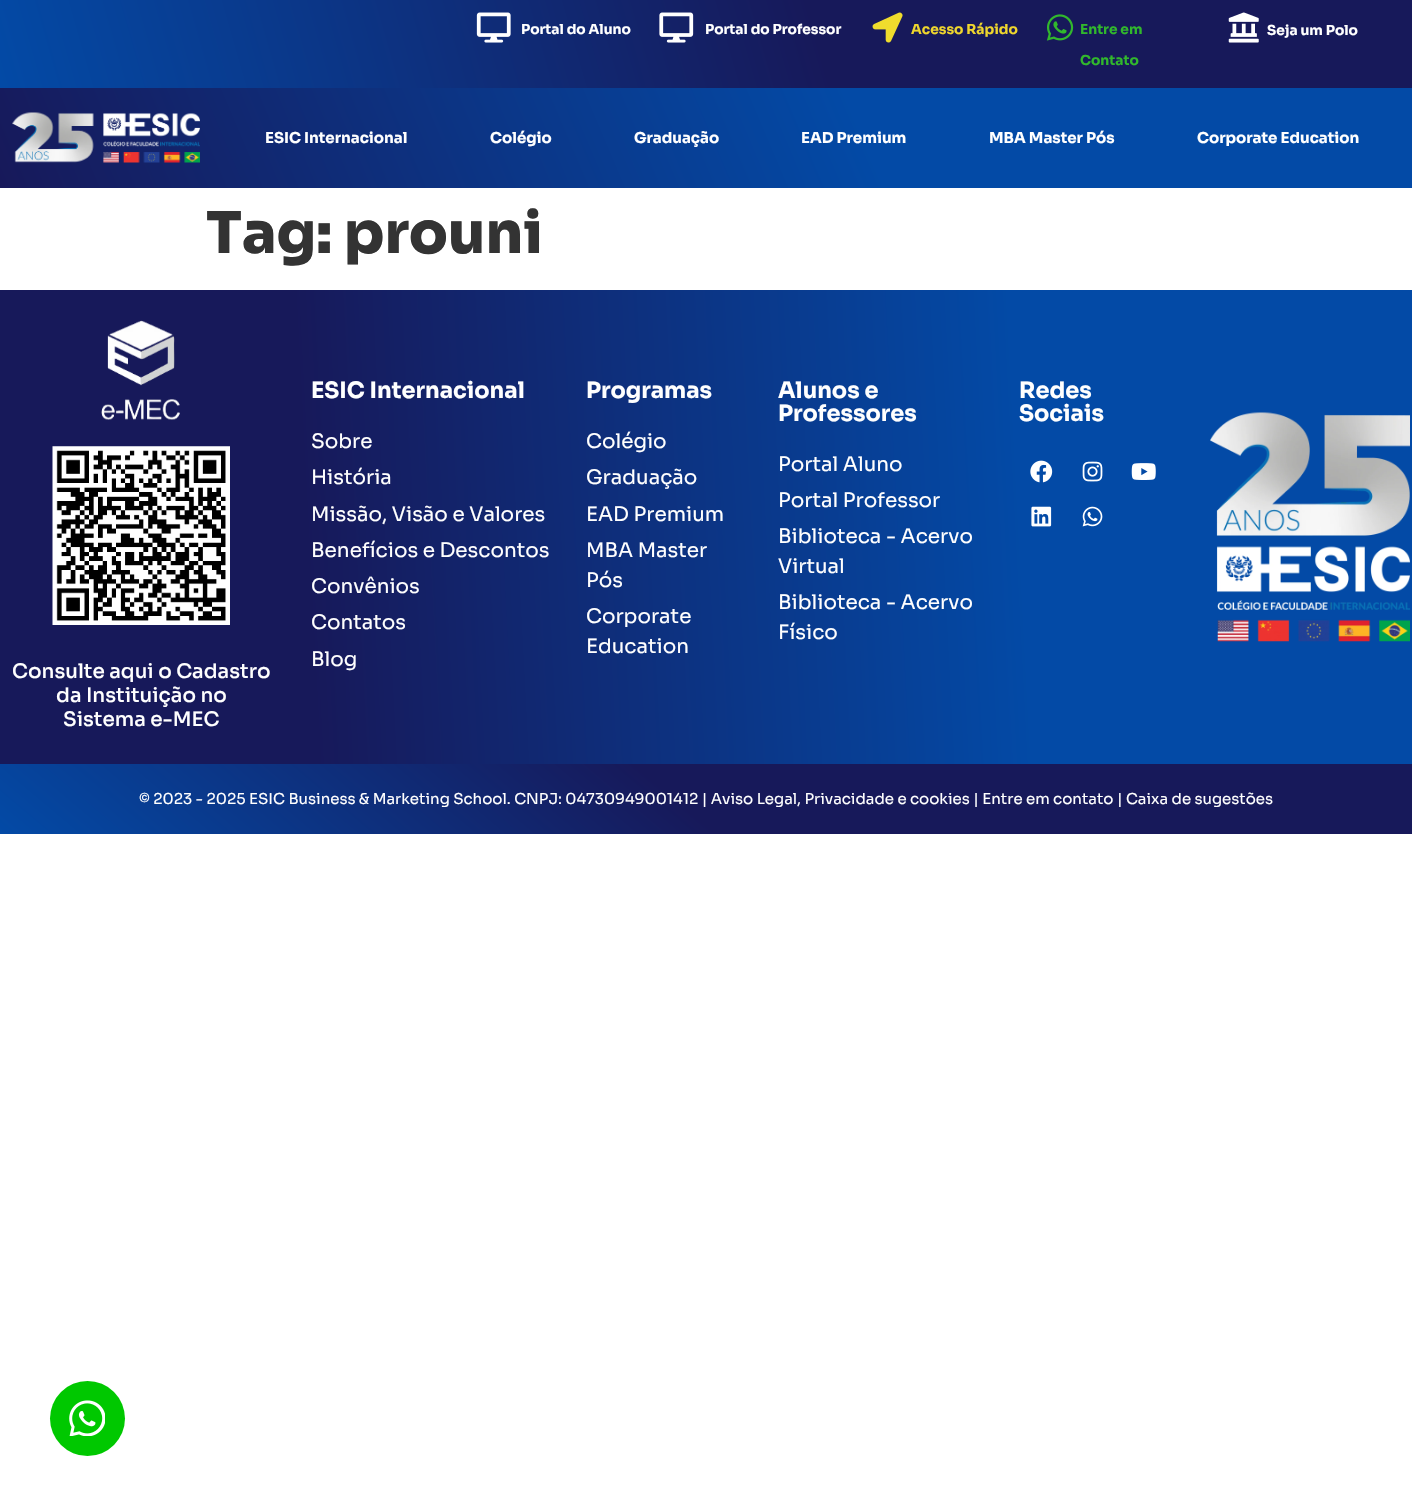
#include "include/core/SkBlurTypes.h"
#include "include/core/SkCanvas.h"
#include "include/core/SkData.h"
#include "include/core/SkFont.h"
#include "include/core/SkFontMgr.h"
#include "include/core/SkImage.h"
#include "include/core/SkMaskFilter.h"
#include "include/core/SkPaint.h"
#include "include/core/SkPathBuilder.h"
#include "include/core/SkTextBlob.h"
#include "include/effects/SkDashPathEffect.h"
#include "include/effects/SkGradientShader.h"
#include "include/utils/SkParsePath.h"

extern sk_sp<SkFontMgr> fontMgr;

void draw(SkCanvas* canvas) {
  SkPaint p;
  p.setAntiAlias(true);
  canvas->clear(SK_ColorWHITE);
  {
    const SkColor colors[] = {SkColorSetRGB(23, 25, 90), SkColorSetRGB(3, 74, 166)};
    const float stops[] = {0.42f, 1};
    const SkPoint ends[] = {{1370, -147}, {42, 234}};
    p.setShader(SkGradientShader::MakeLinear(ends, colors, stops, 2, SkTileMode::kClamp));
    p.setAlpha(255);
  }
  canvas->drawRect(SkRect::MakeLTRB(0, 0, 1412, 88), p);
  canvas->drawImageRect(SkImages::DeferredFromEncodedData(SkData::MakeFromFileName("images/1.png")), SkRect::MakeLTRB(476, 12, 511, 43), SkSamplingOptions());
  canvas->drawImageRect(SkImages::DeferredFromEncodedData(SkData::MakeFromFileName("images/2.png")), SkRect::MakeLTRB(659, 12, 694, 43), SkSamplingOptions());
  canvas->drawImageRect(SkImages::DeferredFromEncodedData(SkData::MakeFromFileName("images/3.png")), SkRect::MakeLTRB(872, 12, 903, 43), SkSamplingOptions());
  canvas->drawImageRect(SkImages::DeferredFromEncodedData(SkData::MakeFromFileName("images/4.png")), SkRect::MakeLTRB(1046, 14, 1074, 41), SkSamplingOptions());
  canvas->drawImageRect(SkImages::DeferredFromEncodedData(SkData::MakeFromFileName("images/5.png")), SkRect::MakeLTRB(1228, 12, 1259, 43), SkSamplingOptions());
  {
    const SkColor colors[] = {SkColorSetRGB(23, 25, 90), SkColorSetRGB(3, 74, 166)};
    const float stops[] = {0, 0.61f};
    const SkPoint ends[] = {{90, 399}, {1323, -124}};
    p.setShader(SkGradientShader::MakeLinear(ends, colors, stops, 2, SkTileMode::kClamp));
    p.setAlpha(255);
  }
  canvas->drawRect(SkRect::MakeLTRB(0, 88, 1412, 188), p);
  canvas->drawImageRect(SkImages::DeferredFromEncodedData(SkData::MakeFromFileName("images/6.png")), SkRect::MakeLTRB(12, 112, 200, 163), SkSamplingOptions());
  {
    const SkColor colors[] = {SkColorSetRGB(3, 74, 166), SkColorSetRGB(23, 25, 90)};
    const float stops[] = {0.28f, 0.78f};
    const SkPoint ends[] = {{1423, 489}, {-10, 564}};
    p.setShader(SkGradientShader::MakeLinear(ends, colors, stops, 2, SkTileMode::kClamp));
    p.setAlpha(255);
  }
  canvas->drawRect(SkRect::MakeLTRB(0, 290, 1412, 764), p);
  canvas->drawImageRect(SkImages::DeferredFromEncodedData(SkData::MakeFromFileName("images/7.png")), SkRect::MakeLTRB(1030, 460, 1053, 483), SkSamplingOptions());
  canvas->drawImageRect(SkImages::DeferredFromEncodedData(SkData::MakeFromFileName("images/8.png")), SkRect::MakeLTRB(1082, 461, 1103, 482), SkSamplingOptions());
  canvas->drawImageRect(SkImages::DeferredFromEncodedData(SkData::MakeFromFileName("images/9.png")), SkRect::MakeLTRB(1131, 463, 1156, 480), SkSamplingOptions());
  canvas->drawImageRect(SkImages::DeferredFromEncodedData(SkData::MakeFromFileName("images/10.png")), SkRect::MakeLTRB(1031, 506, 1052, 527), SkSamplingOptions());
  canvas->drawImageRect(SkImages::DeferredFromEncodedData(SkData::MakeFromFileName("images/11.png")), SkRect::MakeLTRB(1082, 506, 1103, 527), SkSamplingOptions());
  canvas->drawImageRect(SkImages::DeferredFromEncodedData(SkData::MakeFromFileName("images/12.png")), SkRect::MakeLTRB(1210, 412, 1410, 642), SkSamplingOptions());
  canvas->drawImageRect(SkImages::DeferredFromEncodedData(SkData::MakeFromFileName("images/13.png")), SkRect::MakeLTRB(101, 320, 180, 420), SkSamplingOptions());
  canvas->drawImageRect(SkImages::DeferredFromEncodedData(SkData::MakeFromFileName("images/14.png")), SkRect::MakeLTRB(52, 446, 230, 625), SkSamplingOptions());
  {
    const SkColor colors[] = {SkColorSetRGB(3, 74, 166), SkColorSetRGB(23, 25, 90)};
    const float stops[] = {0, 0.48f};
    const SkPoint ends[] = {{397, 1167}, {1015, 430}};
    p.setShader(SkGradientShader::MakeLinear(ends, colors, stops, 2, SkTileMode::kClamp));
    p.setAlpha(255);
  }
  canvas->drawRect(SkRect::MakeLTRB(0, 764, 1412, 834), p);
  p.setShader(nullptr);
  p.setColor(SkColorSetRGB(0, 200, 0));
  canvas->drawCircle(87.5f, 1418.5f, 37.5f, p);
  canvas->drawImageRect(SkImages::DeferredFromEncodedData(SkData::MakeFromFileName("images/15.png")), SkRect::MakeLTRB(69, 1400, 105, 1436), SkSamplingOptions());
  SkFont font1(fontMgr->matchFamilyStyle("Sora", SkFontStyle::Bold()), 13.75f);
  font1.setSubpixel(true);
  p.setColor(SK_ColorWHITE);
  canvas->drawString("Portal do Aluno", 521, 34, font1, p);
  canvas->drawString("Portal do Professor", 705, 34, font1, p);
  p.setColor(SkColorSetRGB(239, 214, 45));
  canvas->drawString("Acesso Rápido", 911, 34, font1, p);
  p.setColor(SkColorSetRGB(49, 184, 44));
  canvas->drawString("Entre em", 1080, 34, font1, p);
  canvas->drawString("Contato", 1080, 65, font1, p);
  p.setColor(SK_ColorWHITE);
  canvas->drawString("Seja um Polo", 1267, 35, font1, p);
  SkFont font2(fontMgr->matchFamilyStyle("Sora", SkFontStyle::Bold()), 15);
  font2.setSubpixel(true);
  canvas->drawString("ESIC Internacional", 265, 143, font2, p);
  canvas->drawString("Colégio", 490, 143, font2, p);
  canvas->drawString("Graduação", 634, 143, font2, p);
  canvas->drawString("EAD Premium", 801, 143, font2, p);
  canvas->drawString("MBA Master Pós", 989, 143, font2, p);
  canvas->drawString("Corporate Education", 1197, 143, font2, p);
  SkFont font3(fontMgr->matchFamilyStyle("Sora", SkFontStyle(800, SkFontStyle::kNormal_Width, SkFontStyle::kUpright_Slant)), 57.5f);
  font3.setSubpixel(true);
  p.setColor(SkColorSetRGB(51, 51, 51));
  canvas->drawString("Tag: prouni", 206, 253, font3, p);
  SkFont font4(fontMgr->matchFamilyStyle("Sora", SkFontStyle::Bold()), 22.5f);
  font4.setSubpixel(true);
  p.setColor(SK_ColorWHITE);
  canvas->drawString("ESIC Internacional", 311, 398, font4, p);
  SkFont font5(fontMgr->matchFamilyStyle("Sora", SkFontStyle::Normal()), 20);
  font5.setSubpixel(true);
  canvas->drawString("Sobre", 311, 448, font5, p);
  canvas->drawString("História", 311, 484, font5, p);
  canvas->drawString("Missão, Visão e Valores", 311, 521, font5, p);
  canvas->drawString("Benefícios e Descontos", 311, 557, font5, p);
  canvas->drawString("Convênios", 311, 593, font5, p);
  canvas->drawString("Contatos", 311, 629, font5, p);
  canvas->drawString("Blog", 311, 666, font5, p);
  canvas->drawString("Programas", 586, 398, font4, p);
  canvas->drawString("Colégio", 586, 448, font5, p);
  canvas->drawString("Graduação", 586, 484, font5, p);
  canvas->drawString("EAD Premium", 586, 521, font5, p);
  canvas->drawString("MBA Master", 586, 557, font5, p);
  canvas->drawString("Pós", 586, 587, font5, p);
  canvas->drawString("Corporate", 586, 623, font5, p);
  canvas->drawString("Education", 586, 653, font5, p);
  canvas->drawString("Alunos e", 778, 398, font4, p);
  canvas->drawString("Professores", 778, 421, font4, p);
  canvas->drawString("Portal Aluno", 778, 471, font5, p);
  canvas->drawString("Portal Professor", 778, 507, font5, p);
  canvas->drawString("Biblioteca - Acervo", 778, 543, font5, p);
  canvas->drawString("Virtual", 778, 573, font5, p);
  canvas->drawString("Biblioteca - Acervo", 778, 609, font5, p);
  canvas->drawString("Físico", 778, 639, font5, p);
  canvas->drawString("Redes", 1019, 398, font4, p);
  canvas->drawString("Sociais", 1019, 421, font4, p);
  SkFont font6(fontMgr->matchFamilyStyle("Sora", SkFontStyle(500, SkFontStyle::kNormal_Width, SkFontStyle::kUpright_Slant)), 20);
  font6.setSubpixel(true);
  canvas->drawString("Consulte aqui o Cadastro", 12, 678, font6, p);
  canvas->drawString("da Instituição no", 56, 702, font6, p);
  canvas->drawString("Sistema e-MEC", 63, 726, font6, p);
  SkFont font7(fontMgr->matchFamilyStyle("Sora", SkFontStyle::Normal()), 15);
  font7.setSubpixel(true);
  canvas->drawString("© 2023 - 2025 ESIC Business & Marketing School. CNPJ: 04730949001412 | Aviso Legal, Privacidade e cookies | Entre em contato | Caixa de sugestões", 139, 804, font7, p);
}
